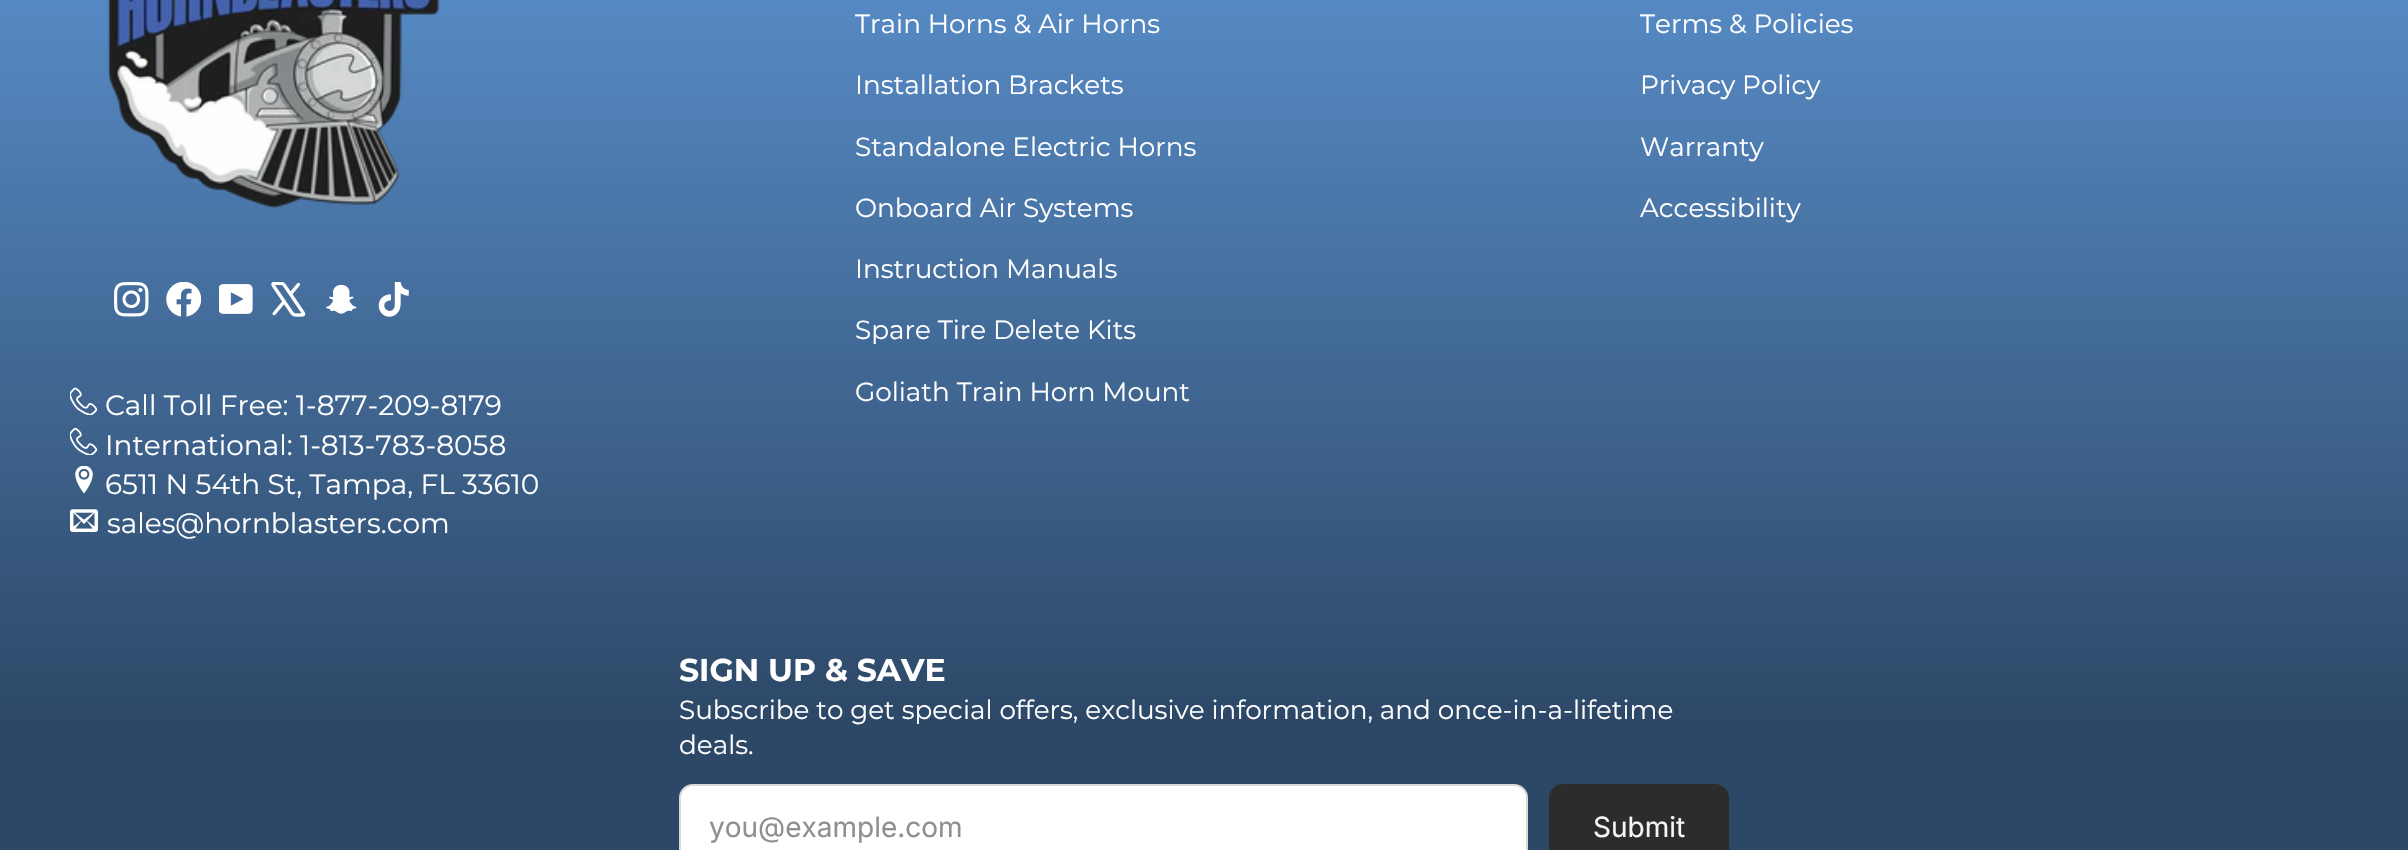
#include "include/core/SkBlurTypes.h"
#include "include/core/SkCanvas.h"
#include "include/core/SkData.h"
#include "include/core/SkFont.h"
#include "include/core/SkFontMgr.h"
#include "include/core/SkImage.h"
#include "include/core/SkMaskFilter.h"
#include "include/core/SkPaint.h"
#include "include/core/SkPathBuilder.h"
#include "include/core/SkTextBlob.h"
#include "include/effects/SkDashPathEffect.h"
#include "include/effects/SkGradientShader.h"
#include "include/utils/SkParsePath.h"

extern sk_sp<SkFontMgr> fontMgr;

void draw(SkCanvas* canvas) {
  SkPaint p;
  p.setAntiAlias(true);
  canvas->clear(SK_ColorWHITE);
  {
    const SkColor colors[] = {SkColorSetRGB(90, 144, 205), SkColorSetRGB(45, 72, 103)};
    const float stops[] = {0.13f, 0.72f};
    const SkPoint ends[] = {{1204, -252}, {1204, 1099}};
    p.setShader(SkGradientShader::MakeLinear(ends, colors, stops, 2, SkTileMode::kClamp));
    p.setAlpha(255);
  }
  canvas->drawRect(SkRect::MakeLTRB(0, 0, 2408, 850), p);
  canvas->drawImageRect(SkImages::DeferredFromEncodedData(SkData::MakeFromFileName("images/1.png")), SkRect::MakeLTRB(107, 0, 440, 209), SkSamplingOptions());
  canvas->drawImageRect(SkImages::DeferredFromEncodedData(SkData::MakeFromFileName("images/2.png")), SkRect::MakeLTRB(114, 282, 149, 317), SkSamplingOptions());
  canvas->drawImageRect(SkImages::DeferredFromEncodedData(SkData::MakeFromFileName("images/3.png")), SkRect::MakeLTRB(166, 282, 201, 317), SkSamplingOptions());
  canvas->drawImageRect(SkImages::DeferredFromEncodedData(SkData::MakeFromFileName("images/4.png")), SkRect::MakeLTRB(219, 284, 253, 314), SkSamplingOptions());
  canvas->drawImageRect(SkImages::DeferredFromEncodedData(SkData::MakeFromFileName("images/5.png")), SkRect::MakeLTRB(271, 282, 306, 317), SkSamplingOptions());
  canvas->drawImageRect(SkImages::DeferredFromEncodedData(SkData::MakeFromFileName("images/6.png")), SkRect::MakeLTRB(325, 284, 357, 314), SkSamplingOptions());
  canvas->drawImageRect(SkImages::DeferredFromEncodedData(SkData::MakeFromFileName("images/7.png")), SkRect::MakeLTRB(378, 282, 409, 317), SkSamplingOptions());
  canvas->drawImageRect(SkImages::DeferredFromEncodedData(SkData::MakeFromFileName("images/8.png")), SkRect::MakeLTRB(70, 387, 98, 415), SkSamplingOptions());
  canvas->drawImageRect(SkImages::DeferredFromEncodedData(SkData::MakeFromFileName("images/9.png")), SkRect::MakeLTRB(70, 427, 98, 455), SkSamplingOptions());
  canvas->drawImageRect(SkImages::DeferredFromEncodedData(SkData::MakeFromFileName("images/10.png")), SkRect::MakeLTRB(75, 466, 93, 494), SkSamplingOptions());
  canvas->drawImageRect(SkImages::DeferredFromEncodedData(SkData::MakeFromFileName("images/11.png")), SkRect::MakeLTRB(70, 509, 98, 532), SkSamplingOptions());
  p.setShader(nullptr);
  p.setColor(SK_ColorWHITE);
  canvas->drawRoundRect(SkRect::MakeLTRB(680, 785, 1527, 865), 13, 13, p);
  p.setStyle(SkPaint::kStroke_Style);
  p.setStrokeWidth(2);
  p.setColor(SkColorSetRGB(217, 217, 217));
  canvas->drawRoundRect(SkRect::MakeLTRB(680, 785, 1527, 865), 13, 13, p);
  p.setStyle(SkPaint::kFill_Style);
  p.setColor(SkColorSetRGB(44, 44, 44));
  canvas->drawRoundRect(SkRect::MakeLTRB(1550, 785, 1728, 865), 13, 13, p);
  p.setStyle(SkPaint::kStroke_Style);
  canvas->drawRoundRect(SkRect::MakeLTRB(1550, 785, 1728, 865), 13, 13, p);
  SkFont font1(fontMgr->matchFamilyStyle("Montserrat", SkFontStyle::Normal()), 26.25f);
  font1.setSubpixel(true);
  p.setStyle(SkPaint::kFill_Style);
  p.setColor(SK_ColorWHITE);
  canvas->drawString("Train Horns & Air Horns", 855, 33, font1, p);
  canvas->drawString("Installation Brackets", 855, 94, font1, p);
  canvas->drawString("Standalone Electric Horns", 855, 156, font1, p);
  canvas->drawString("Onboard Air Systems", 855, 217, font1, p);
  canvas->drawString("Instruction Manuals", 855, 278, font1, p);
  canvas->drawString("Spare Tire Delete Kits", 855, 339, font1, p);
  canvas->drawString("Goliath Train Horn Mount", 855, 401, font1, p);
  canvas->drawString("Terms & Policies", 1640, 33, font1, p);
  canvas->drawString("Privacy Policy", 1640, 94, font1, p);
  canvas->drawString("Warranty", 1640, 156, font1, p);
  canvas->drawString("Accessibility", 1640, 217, font1, p);
  SkFont font2(fontMgr->matchFamilyStyle("Montserrat", SkFontStyle::Normal()), 28);
  font2.setSubpixel(true);
  canvas->drawString("Call Toll Free: 1-877-209-8179", 105, 415, font2, p);
  canvas->drawString("International: 1-813-783-8058", 105, 455, font2, p);
  canvas->drawString("6511 N 54th St, Tampa, FL 33610", 105, 494, font2, p);
  canvas->drawString("sales@hornblasters.com", 107, 533, font2, p);
  SkFont font3(fontMgr->matchFamilyStyle("Montserrat", SkFontStyle(100, SkFontStyle::kNormal_Width, SkFontStyle::kUpright_Slant)), 31.5f);
  font3.setSubpixel(true);
  canvas->drawString("SIGN UP & SAVE", 679, 681, font3, p);
  canvas->drawString("Subscribe to get special offers, exclusive information, and once-in-a-lifetime", 679, 719, font1, p);
  canvas->drawString("deals.", 679, 754, font1, p);
  SkFont font4(fontMgr->matchFamilyStyle("Inter", SkFontStyle::Normal()), 28);
  font4.setSubpixel(true);
  p.setColor(SkColorSetRGB(143, 143, 143));
  canvas->drawString("you@example.com", 709, 837, font4, p);
  p.setColor(SkColorSetRGB(245, 245, 245));
  canvas->drawString("Submit", 1593, 837, font4, p);
}
